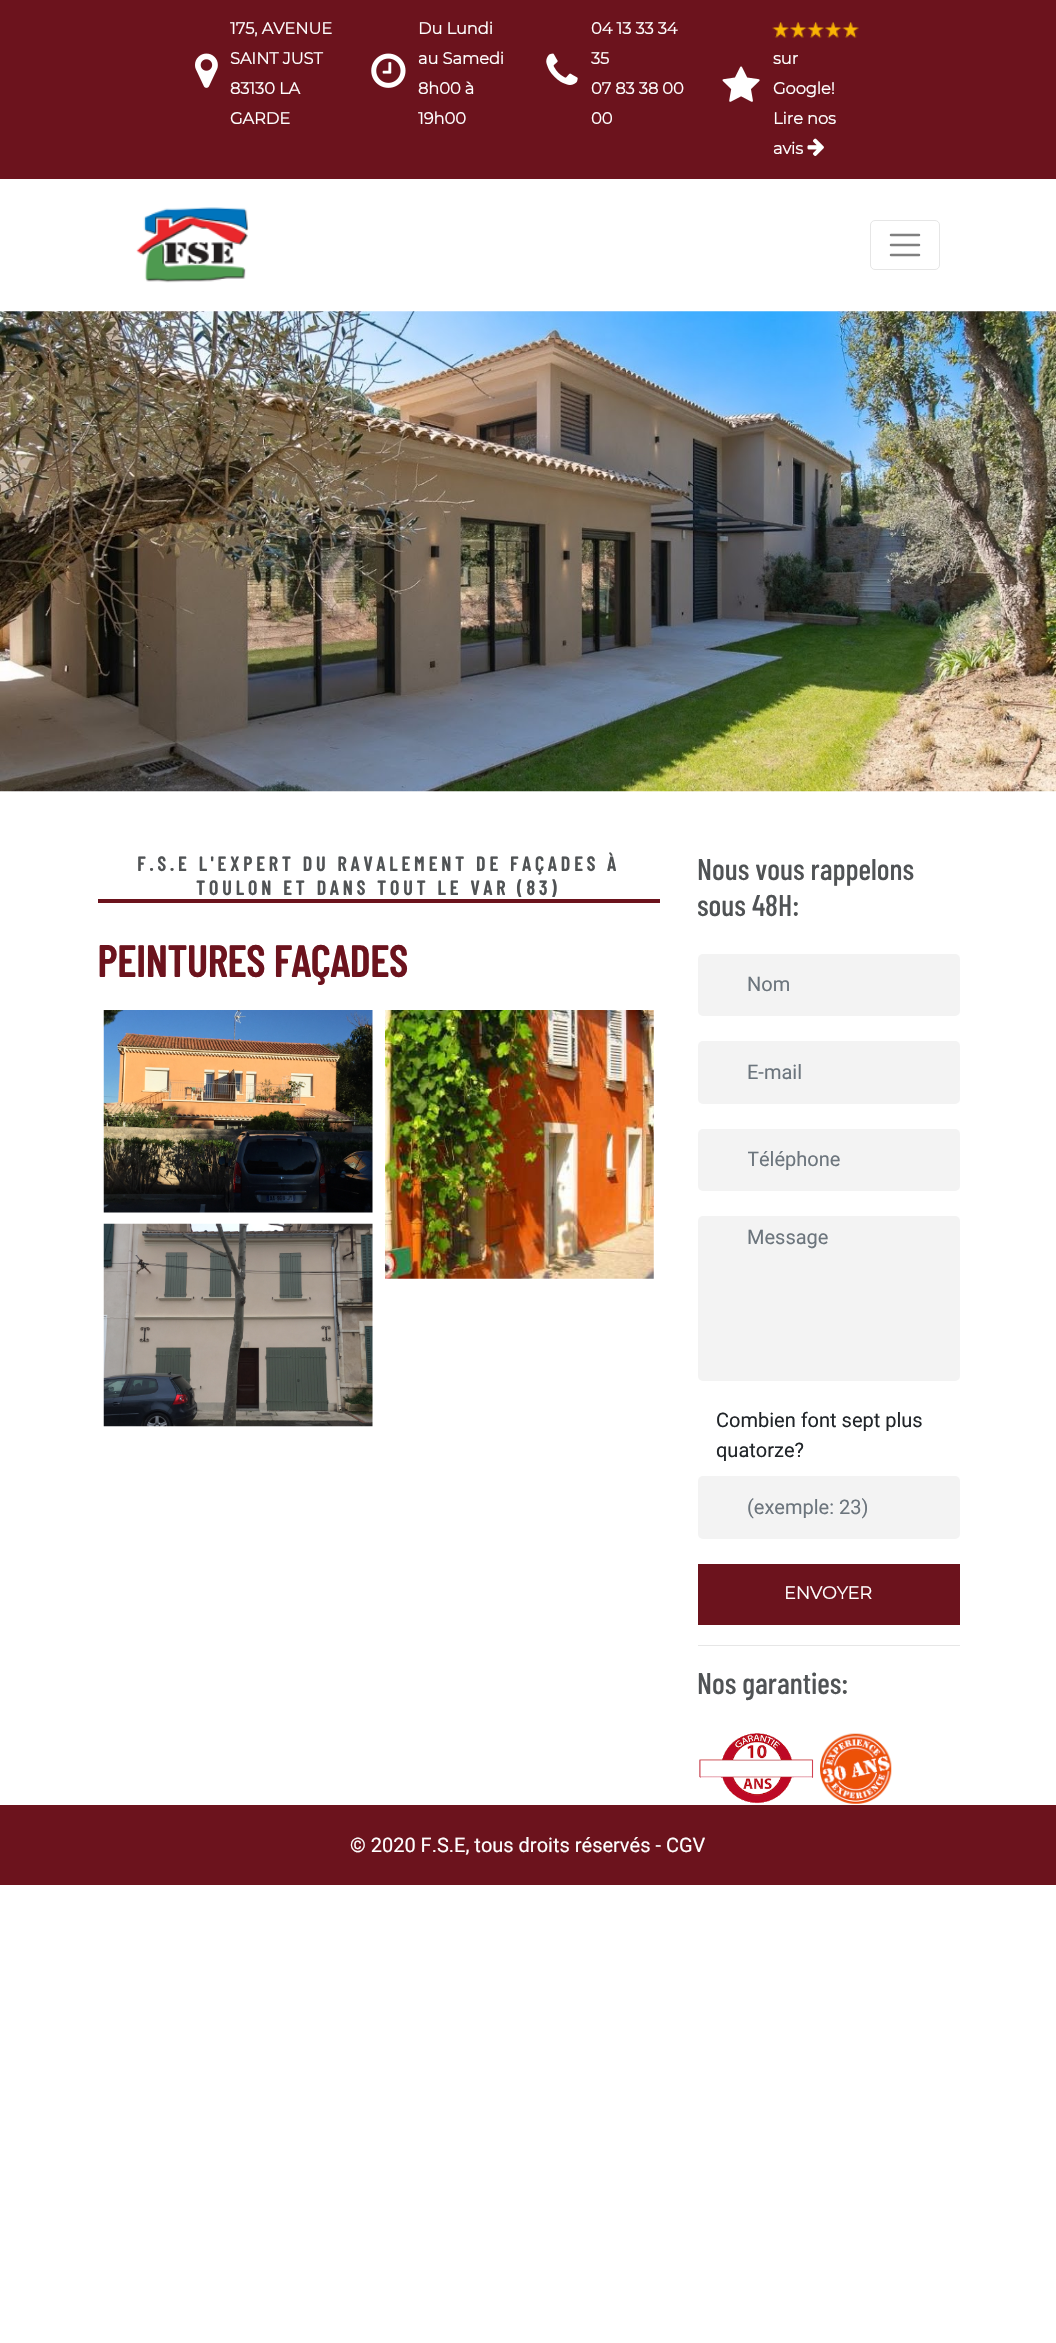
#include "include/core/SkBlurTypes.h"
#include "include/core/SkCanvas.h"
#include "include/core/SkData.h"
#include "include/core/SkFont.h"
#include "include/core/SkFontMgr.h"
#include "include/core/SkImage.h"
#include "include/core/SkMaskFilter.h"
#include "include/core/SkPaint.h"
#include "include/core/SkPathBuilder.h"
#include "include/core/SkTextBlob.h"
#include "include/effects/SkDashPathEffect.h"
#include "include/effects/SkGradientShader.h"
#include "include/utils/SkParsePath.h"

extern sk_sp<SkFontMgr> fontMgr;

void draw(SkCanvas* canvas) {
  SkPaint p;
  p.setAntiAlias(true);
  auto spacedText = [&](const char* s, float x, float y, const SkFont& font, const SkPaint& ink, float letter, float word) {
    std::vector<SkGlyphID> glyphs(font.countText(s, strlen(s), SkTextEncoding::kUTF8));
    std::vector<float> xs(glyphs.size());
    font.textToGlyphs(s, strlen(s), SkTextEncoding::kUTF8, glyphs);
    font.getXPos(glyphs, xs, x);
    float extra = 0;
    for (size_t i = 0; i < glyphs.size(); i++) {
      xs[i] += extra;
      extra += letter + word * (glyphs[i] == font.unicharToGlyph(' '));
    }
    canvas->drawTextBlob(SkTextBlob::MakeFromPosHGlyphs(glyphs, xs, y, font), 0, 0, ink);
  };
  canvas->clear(SK_ColorWHITE);
  p.setColor(SkColorSetRGB(108, 19, 29));
  canvas->drawRect(SkRect::MakeLTRB(0, 0, 1056, 179), p);
  canvas->drawImageRect(SkImages::DeferredFromEncodedData(SkData::MakeFromFileName("images/1.png")), SkRect::MakeLTRB(195, 53, 218, 88), SkSamplingOptions());
  canvas->drawImageRect(SkImages::DeferredFromEncodedData(SkData::MakeFromFileName("images/2.png")), SkRect::MakeLTRB(371, 53, 406, 88), SkSamplingOptions());
  canvas->drawImageRect(SkImages::DeferredFromEncodedData(SkData::MakeFromFileName("images/3.png")), SkRect::MakeLTRB(546, 53, 578, 85), SkSamplingOptions());
  canvas->drawImageRect(SkImages::DeferredFromEncodedData(SkData::MakeFromFileName("images/4.png")), SkRect::MakeLTRB(722, 66, 760, 102), SkSamplingOptions());
  canvas->drawImageRect(SkImages::DeferredFromEncodedData(SkData::MakeFromFileName("images/5.png")), SkRect::MakeLTRB(772, 22, 789, 38), SkSamplingOptions());
  canvas->drawImageRect(SkImages::DeferredFromEncodedData(SkData::MakeFromFileName("images/6.png")), SkRect::MakeLTRB(790, 22, 807, 38), SkSamplingOptions());
  canvas->drawImageRect(SkImages::DeferredFromEncodedData(SkData::MakeFromFileName("images/5.png")), SkRect::MakeLTRB(807, 22, 824, 38), SkSamplingOptions());
  canvas->drawImageRect(SkImages::DeferredFromEncodedData(SkData::MakeFromFileName("images/7.png")), SkRect::MakeLTRB(825, 22, 842, 38), SkSamplingOptions());
  canvas->drawImageRect(SkImages::DeferredFromEncodedData(SkData::MakeFromFileName("images/8.png")), SkRect::MakeLTRB(842, 22, 859, 38), SkSamplingOptions());
  canvas->drawImageRect(SkImages::DeferredFromEncodedData(SkData::MakeFromFileName("images/9.png")), SkRect::MakeLTRB(807, 138, 824, 156), SkSamplingOptions());
  canvas->drawImageRect(SkImages::DeferredFromEncodedData(SkData::MakeFromFileName("images/10.png")), SkRect::MakeLTRB(136, 207, 249, 283), SkSamplingOptions());
  p.setStyle(SkPaint::kStroke_Style);
  p.setStrokeWidth(1);
  p.setColor(SkColorSetRGB(230, 230, 230));
  canvas->drawRoundRect(SkRect::MakeLTRB(870.5f, 220.5f, 939.5f, 269.5f), 4.5f, 4.5f, p);
  p.setStrokeWidth(2.5f);
  p.setStrokeCap(SkPaint::kRound_Cap);
  p.setColor(SkColorSetRGB(128, 128, 128));
  canvas->drawPath(SkPathBuilder().moveTo(891, 235).lineTo(919, 235).moveTo(891, 245).lineTo(919, 245).moveTo(891, 255).lineTo(919, 255).detach(), p);
  canvas->drawImageRect(SkImages::DeferredFromEncodedData(SkData::MakeFromFileName("images/11.png")), SkRect::MakeLTRB(0, 311, 1056, 792), SkSamplingOptions());
  p.setStyle(SkPaint::kFill_Style);
  p.setColor(SkColorSetRGB(108, 19, 29));
  canvas->drawRect(SkRect::MakeLTRB(98, 899, 660, 903), p);
  canvas->drawImageRect(SkImages::DeferredFromEncodedData(SkData::MakeFromFileName("images/12.png")), SkRect::MakeLTRB(103, 1010, 373, 1213), SkSamplingOptions());
  canvas->drawImageRect(SkImages::DeferredFromEncodedData(SkData::MakeFromFileName("images/13.png")), SkRect::MakeLTRB(385, 1010, 654, 1279), SkSamplingOptions());
  canvas->drawImageRect(SkImages::DeferredFromEncodedData(SkData::MakeFromFileName("images/14.png")), SkRect::MakeLTRB(103, 1223, 373, 1427), SkSamplingOptions());
  p.setColor(SkColorSetRGB(243, 243, 243));
  canvas->drawRoundRect(SkRect::MakeLTRB(698, 954, 960, 1016), 5, 5, p);
  canvas->drawRoundRect(SkRect::MakeLTRB(698, 1041, 960, 1104), 5, 5, p);
  canvas->drawRoundRect(SkRect::MakeLTRB(698, 1129, 960, 1191), 5, 5, p);
  canvas->drawRoundRect(SkRect::MakeLTRB(698, 1216, 960, 1381), 5, 5, p);
  canvas->drawRoundRect(SkRect::MakeLTRB(698, 1476, 960, 1539), 5, 5, p);
  p.setColor(SkColorSetRGB(108, 19, 29));
  canvas->drawRect(SkRect::MakeLTRB(698, 1564, 960, 1625), p);
  p.setColor(SkColorSetRGB(230, 230, 230));
  canvas->drawRect(SkRect::MakeLTRB(698, 1645, 960, 1646), p);
  canvas->drawImageRect(SkImages::DeferredFromEncodedData(SkData::MakeFromFileName("images/15.png")), SkRect::MakeLTRB(699, 1733, 814, 1804), SkSamplingOptions());
  canvas->drawImageRect(SkImages::DeferredFromEncodedData(SkData::MakeFromFileName("images/16.png")), SkRect::MakeLTRB(820, 1733, 892, 1804), SkSamplingOptions());
  p.setColor(SkColorSetRGB(108, 19, 29));
  canvas->drawRect(SkRect::MakeLTRB(0, 1805, 1056, 1885), p);
  SkFont font1(fontMgr->matchFamilyStyle("Montserrat", SkFontStyle::Bold()), 16.25f);
  font1.setSubpixel(true);
  p.setColor(SK_ColorWHITE);
  canvas->drawString("175, AVENUE", 230, 34, font1, p);
  canvas->drawString("SAINT JUST", 230, 64, font1, p);
  canvas->drawString("83130 LA", 230, 94, font1, p);
  canvas->drawString("GARDE", 230, 124, font1, p);
  canvas->drawString("Du Lundi", 418, 34, font1, p);
  canvas->drawString("au Samedi", 418, 64, font1, p);
  canvas->drawString("8h00 à", 418, 94, font1, p);
  canvas->drawString("19h00", 418, 124, font1, p);
  canvas->drawString("04 13 33 34", 591, 34, font1, p);
  canvas->drawString("35", 591, 64, font1, p);
  canvas->drawString("07 83 38 00", 591, 94, font1, p);
  canvas->drawString("00", 591, 124, font1, p);
  canvas->drawString("sur", 773, 64, font1, p);
  canvas->drawString("Google!", 773, 94, font1, p);
  canvas->drawString("Lire nos", 773, 124, font1, p);
  canvas->drawString("avis", 773, 154, font1, p);
  SkFont font2(fontMgr->matchFamilyStyle("Barlow Condensed", SkFontStyle::Bold()), 20);
  font2.setSubpixel(true);
  p.setColor(SkColorSetRGB(80, 83, 85));
  spacedText("F.S.E L'EXPERT DU RAVALEMENT DE FAÇADES À", 137, 871, font2, p, 4, 0);
  spacedText("TOULON ET DANS TOUT LE VAR (83)", 196, 895, font2, p, 4, 0);
  SkFont font3(fontMgr->matchFamilyStyle("Barlow Condensed", SkFontStyle::Bold()), 43.75f);
  font3.setSubpixel(true);
  p.setColor(SkColorSetRGB(108, 19, 29));
  canvas->drawString("PEINTURES FAÇADES", 97, 977, font3, p);
  SkFont font4(fontMgr->matchFamilyStyle("Barlow Condensed", SkFontStyle(500, SkFontStyle::kNormal_Width, SkFontStyle::kUpright_Slant)), 30);
  font4.setSubpixel(true);
  p.setColor(SkColorSetRGB(80, 83, 85));
  canvas->drawString("Nous vous rappelons", 697, 880, font4, p);
  canvas->drawString("sous 48H:", 697, 916, font4, p);
  SkFont font5(fontMgr->matchFamilyStyle("Roboto", SkFontStyle::Normal()), 20);
  font5.setSubpixel(true);
  p.setColor(SkColorSetRGB(108, 117, 125));
  canvas->drawString("Nom", 747, 991, font5, p);
  canvas->drawString("E-mail", 747, 1079, font5, p);
  canvas->save();
  canvas->clipRect(SkRect::MakeLTRB(748, 1148, 945, 1171));
  canvas->drawString("Téléphone", 747, 1166, font5, p);
  canvas->restore();
  canvas->drawString("Message", 747, 1244, font5, p);
  p.setColor(SkColorSetRGB(33, 37, 41));
  canvas->drawString("Combien font sept plus", 716, 1427, font5, p);
  canvas->drawString("quatorze?", 716, 1457, font5, p);
  p.setColor(SkColorSetRGB(108, 117, 125));
  canvas->drawString("(exemple: 23)", 747, 1514, font5, p);
  SkFont font6(fontMgr->matchFamilyStyle("Montserrat", SkFontStyle::Bold()), 17.5f);
  font6.setSubpixel(true);
  p.setColor(SK_ColorWHITE);
  canvas->drawString("ENVOYER", 784, 1599, font6, p);
  p.setColor(SkColorSetRGB(80, 83, 85));
  canvas->drawString("Nos garanties:", 697, 1694, font4, p);
  p.setColor(SK_ColorWHITE);
  canvas->drawString("© 2020 F.S.E, tous droits réservés - CGV", 350, 1852, font5, p);
}
